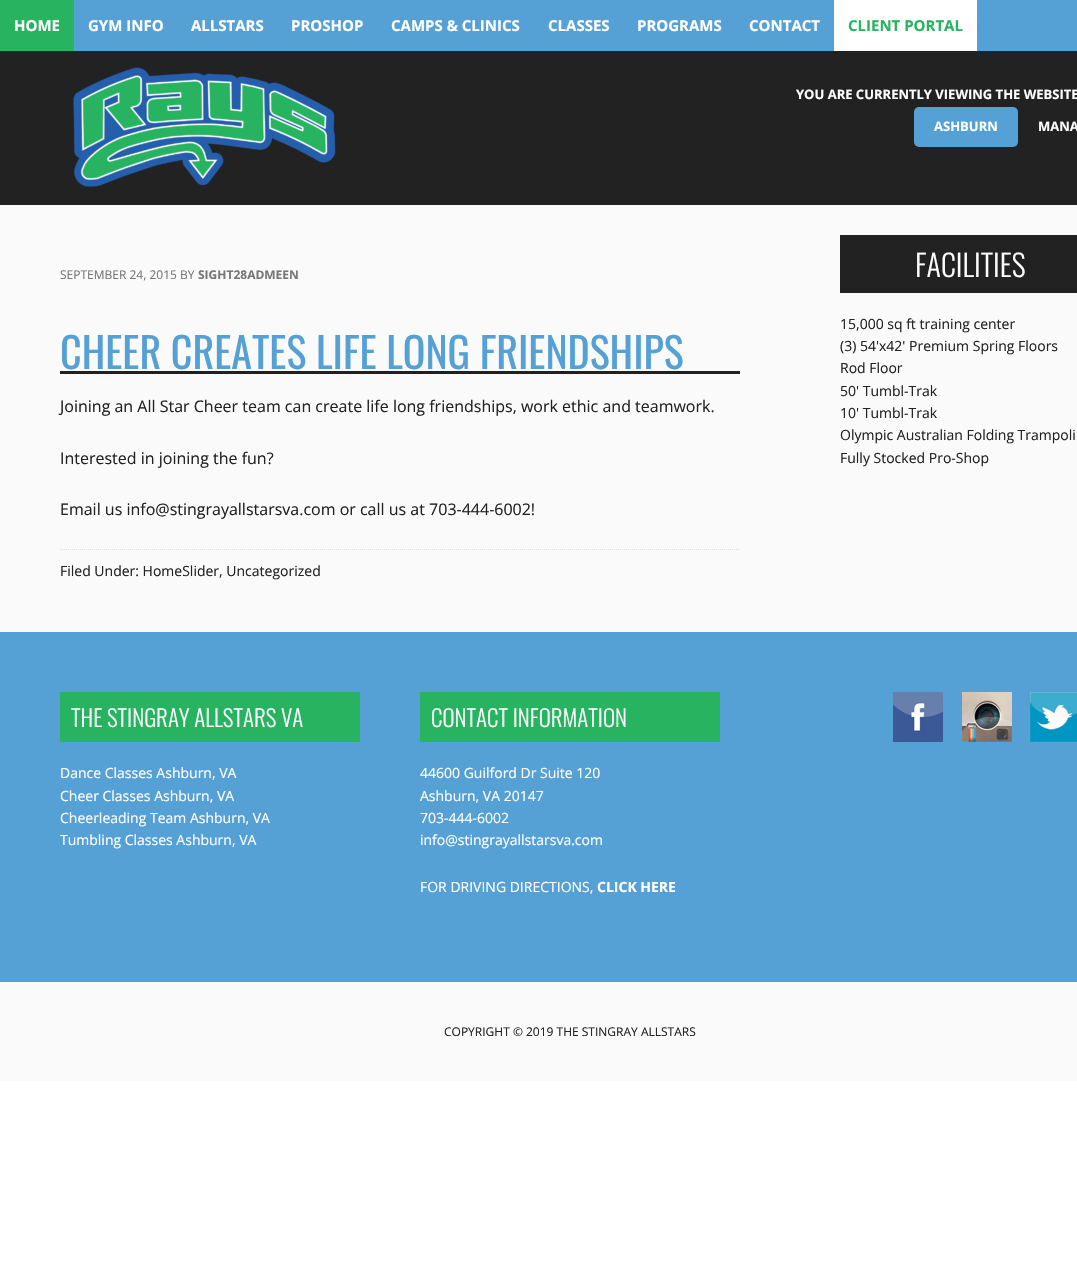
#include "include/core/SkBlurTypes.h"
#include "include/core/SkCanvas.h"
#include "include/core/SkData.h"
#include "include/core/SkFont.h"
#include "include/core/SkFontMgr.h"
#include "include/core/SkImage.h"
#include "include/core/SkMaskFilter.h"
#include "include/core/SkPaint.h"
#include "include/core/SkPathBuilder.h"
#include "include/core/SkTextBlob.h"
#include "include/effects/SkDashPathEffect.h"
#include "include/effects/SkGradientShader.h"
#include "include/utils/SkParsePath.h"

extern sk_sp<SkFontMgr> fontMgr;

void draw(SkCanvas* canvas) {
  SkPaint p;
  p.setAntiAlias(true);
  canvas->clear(SK_ColorWHITE);
  p.setColor(SkColorSetRGB(250, 250, 250));
  canvas->drawRect(SkRect::MakeLTRB(0, 205, 1077, 1081), p);
  p.setColor(SkColorSetRGB(85, 160, 213));
  canvas->drawRect(SkRect::MakeLTRB(74, 0, 1077, 51), p);
  p.setColor(SkColorSetRGB(40, 179, 96));
  canvas->drawRect(SkRect::MakeLTRB(0, 0, 74, 51), p);
  p.setColor(SK_ColorWHITE);
  canvas->drawRect(SkRect::MakeLTRB(834, 0, 977, 51), p);
  p.setColor(SkColorSetRGB(34, 34, 34));
  canvas->drawRect(SkRect::MakeLTRB(0, 51, 1077, 205), p);
  canvas->drawImageRect(SkImages::DeferredFromEncodedData(SkData::MakeFromFileName("images/1.png")), SkRect::MakeLTRB(73, 67, 336, 187), SkSamplingOptions());
  p.setColor(SkColorSetRGB(85, 160, 213));
  canvas->drawRoundRect(SkRect::MakeLTRB(914, 107, 1018, 147), 5, 5, p);
  p.setColor(SkColorSetRGB(33, 33, 33));
  canvas->drawRect(SkRect::MakeLTRB(60, 371, 740, 374), p);
  p.setStyle(SkPaint::kStroke_Style);
  p.setStrokeWidth(1);
  p.setColor(SkColorSetRGB(221, 221, 221));
  p.setPathEffect(SkDashPathEffect::Make({{1, 1}}, 0));
  canvas->drawPath(SkPathBuilder().moveTo(60, 549.5f).lineTo(740, 549.5f).detach(), p);
  p.setPathEffect(nullptr);
  p.setStyle(SkPaint::kFill_Style);
  p.setColor(SkColorSetRGB(34, 34, 34));
  canvas->drawRect(SkRect::MakeLTRB(840, 235, 1077, 293), p);
  p.setColor(SkColorSetRGB(85, 160, 213));
  canvas->drawRect(SkRect::MakeLTRB(0, 632, 1077, 982), p);
  p.setColor(SkColorSetRGB(40, 179, 96));
  canvas->drawRect(SkRect::MakeLTRB(60, 692, 360, 742), p);
  canvas->drawRect(SkRect::MakeLTRB(420, 692, 720, 742), p);
  canvas->drawImageRect(SkImages::DeferredFromEncodedData(SkData::MakeFromFileName("images/2.png")), SkRect::MakeLTRB(893, 692, 943, 742), SkSamplingOptions());
  canvas->drawImageRect(SkImages::DeferredFromEncodedData(SkData::MakeFromFileName("images/3.png")), SkRect::MakeLTRB(962, 692, 1012, 742), SkSamplingOptions());
  canvas->drawImageRect(SkImages::DeferredFromEncodedData(SkData::MakeFromFileName("images/4.png")), SkRect::MakeLTRB(1030, 692, 1077, 742), SkSamplingOptions());
  SkFont font1(fontMgr->matchFamilyStyle("Open Sans", SkFontStyle::Bold()), 15);
  font1.setSubpixel(true);
  p.setColor(SK_ColorWHITE);
  canvas->drawString("HOME", 14, 31, font1, p);
  canvas->drawString("GYM INFO", 88, 31, font1, p);
  canvas->drawString("ALLSTARS", 191, 31, font1, p);
  canvas->drawString("PROSHOP", 291, 31, font1, p);
  canvas->drawString("CAMPS & CLINICS", 391, 31, font1, p);
  canvas->drawString("CLASSES", 548, 31, font1, p);
  canvas->drawString("PROGRAMS", 637, 31, font1, p);
  canvas->drawString("CONTACT", 749, 31, font1, p);
  p.setColor(SkColorSetRGB(40, 179, 96));
  canvas->drawString("CLIENT PORTAL", 848, 31, font1, p);
  SkFont font2(fontMgr->matchFamilyStyle("Open Sans", SkFontStyle::Bold()), 13);
  font2.setSubpixel(true);
  p.setColor(SK_ColorWHITE);
  canvas->drawString("YOU ARE CURRENTLY VIEWING THE WEBSITE", 796, 99, font2, p);
  canvas->drawString("ASHBURN", 934, 131, font2, p);
  canvas->drawString("MANA", 1038, 131, font2, p);
  SkFont font3(fontMgr->matchFamilyStyle("Open Sans", SkFontStyle::Normal()), 12);
  font3.setSubpixel(true);
  p.setColor(SkColorSetRGB(119, 119, 119));
  canvas->drawString("SEPTEMBER 24, 2015 BY", 60, 279, font3, p);
  SkFont font4(fontMgr->matchFamilyStyle("Open Sans", SkFontStyle::Bold()), 12);
  font4.setSubpixel(true);
  canvas->drawString("SIGHT28ADMEEN", 198, 279, font4, p);
  SkFont font5(fontMgr->matchFamilyStyle("Oswald", SkFontStyle::Normal()), 42);
  font5.setSubpixel(true);
  p.setColor(SkColorSetRGB(85, 160, 213));
  canvas->drawString("CHEER CREATES LIFE LONG FRIENDSHIPS", 60, 369, font5, p);
  SkFont font6(fontMgr->matchFamilyStyle("Open Sans", SkFontStyle::Normal()), 16);
  font6.setSubpixel(true);
  p.setColor(SkColorSetRGB(34, 34, 34));
  canvas->drawString("Joining an All Star Cheer team can create life long friendships, work ethic and teamwork.", 60, 412, font6, p);
  canvas->drawString("Interested in joining the fun?", 60, 464, font6, p);
  canvas->drawString("Email us info@stingrayallstarsva.com or call us at 703-444-6002!", 60, 515, font6, p);
  SkFont font7(fontMgr->matchFamilyStyle("Open Sans", SkFontStyle::Normal()), 14);
  font7.setSubpixel(true);
  canvas->drawString("Filed Under: HomeSlider, Uncategorized", 60, 576, font7, p);
  SkFont font8(fontMgr->matchFamilyStyle("Oswald", SkFontStyle(300, SkFontStyle::kNormal_Width, SkFontStyle::kUpright_Slant)), 30);
  font8.setSubpixel(true);
  p.setColor(SK_ColorWHITE);
  canvas->drawString("FACILITIES", 915, 277, font8, p);
  p.setColor(SkColorSetRGB(34, 34, 34));
  canvas->drawString("15,000 sq ft training center", 840, 329, font7, p);
  canvas->drawString("(3) 54'x42' Premium Spring Floors", 840, 351, font7, p);
  canvas->drawString("Rod Floor", 840, 373, font7, p);
  canvas->drawString("50' Tumbl-Trak", 840, 396, font7, p);
  canvas->drawString("10' Tumbl-Trak", 840, 418, font7, p);
  canvas->drawString("Olympic Australian Folding Trampoli", 840, 440, font7, p);
  canvas->drawString("Fully Stocked Pro-Shop", 840, 463, font7, p);
  SkFont font9(fontMgr->matchFamilyStyle("Oswald", SkFontStyle(300, SkFontStyle::kNormal_Width, SkFontStyle::kUpright_Slant)), 23);
  font9.setSubpixel(true);
  p.setColor(SK_ColorWHITE);
  canvas->drawString("THE STINGRAY ALLSTARS VA", 71, 727, font9, p);
  canvas->drawString("Dance Classes Ashburn, VA", 60, 778, font7, p);
  canvas->drawString("Cheer Classes Ashburn, VA", 60, 801, font7, p);
  canvas->drawString("Cheerleading Team Ashburn, VA", 60, 823, font7, p);
  canvas->drawString("Tumbling Classes Ashburn, VA", 60, 845, font7, p);
  canvas->drawString("CONTACT INFORMATION", 431, 727, font9, p);
  canvas->drawString("44600 Guilford Dr Suite 120", 420, 778, font7, p);
  canvas->drawString("Ashburn, VA 20147", 420, 801, font7, p);
  canvas->drawString("703-444-6002", 420, 823, font7, p);
  canvas->drawString("info@stingrayallstarsva.com", 420, 845, font7, p);
  canvas->drawString("FOR DRIVING DIRECTIONS,", 420, 892, font7, p);
  SkFont font10(fontMgr->matchFamilyStyle("Open Sans", SkFontStyle::Bold()), 14);
  font10.setSubpixel(true);
  canvas->drawString("CLICK HERE", 597, 892, font10, p);
  p.setColor(SkColorSetRGB(34, 34, 34));
  canvas->drawString("COPYRIGHT © 2019 THE STINGRAY ALLSTARS", 444, 1036, font3, p);
}
